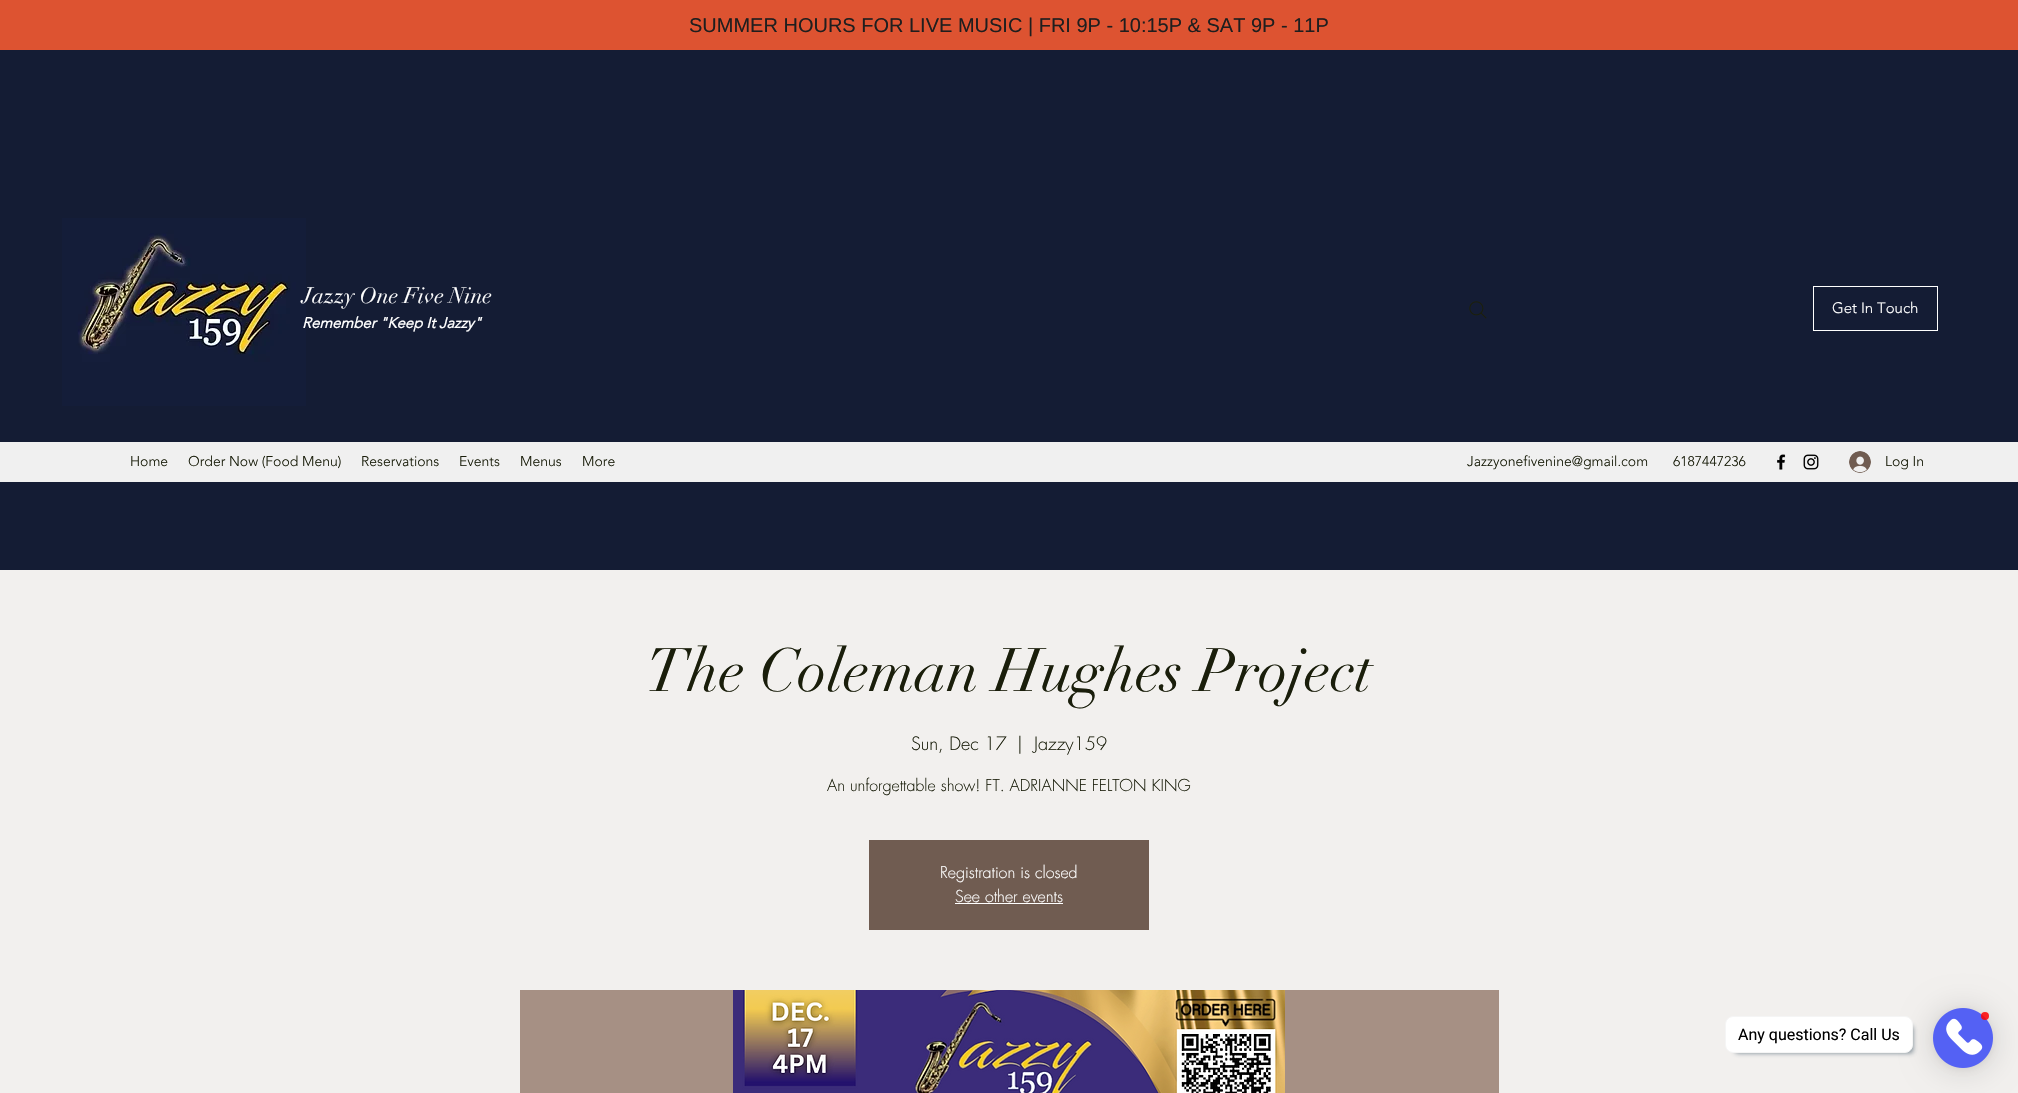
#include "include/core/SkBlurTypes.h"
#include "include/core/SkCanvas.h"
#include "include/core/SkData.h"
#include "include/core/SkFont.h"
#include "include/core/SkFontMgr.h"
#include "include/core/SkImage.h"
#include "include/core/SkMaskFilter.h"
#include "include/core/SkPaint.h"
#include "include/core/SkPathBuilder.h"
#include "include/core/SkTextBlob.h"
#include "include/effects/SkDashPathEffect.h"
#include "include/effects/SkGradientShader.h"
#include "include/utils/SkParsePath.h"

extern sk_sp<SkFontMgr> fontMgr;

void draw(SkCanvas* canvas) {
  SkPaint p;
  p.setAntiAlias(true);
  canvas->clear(SkColorSetRGB(221, 83, 49));
  p.setColor(SkColorSetRGB(20, 28, 52));
  canvas->drawRect(SkRect::MakeLTRB(0, 50, 2018, 570), p);
  canvas->drawImageRect(SkImages::DeferredFromEncodedData(SkData::MakeFromFileName("images/1.png")), SkRect::MakeLTRB(62, 218, 306, 406), SkSamplingOptions());
  p.setStyle(SkPaint::kStroke_Style);
  p.setStrokeWidth(1);
  p.setColor(SK_ColorWHITE);
  canvas->drawRect(SkRect::MakeLTRB(1813.5f, 286.5f, 1937.5f, 330.5f), p);
  canvas->drawImageRect(SkImages::DeferredFromEncodedData(SkData::MakeFromFileName("images/2.png")), SkRect::MakeLTRB(1469, 301, 1487, 319), SkSamplingOptions());
  p.setStyle(SkPaint::kFill_Style);
  p.setColor(SkColorSetRGB(240, 240, 240));
  canvas->drawRect(SkRect::MakeLTRB(0, 442, 2018, 482), p);
  canvas->drawImageRect(SkImages::DeferredFromEncodedData(SkData::MakeFromFileName("images/3.png")), SkRect::MakeLTRB(1777, 454, 1786, 470), SkSamplingOptions());
  canvas->drawImageRect(SkImages::DeferredFromEncodedData(SkData::MakeFromFileName("images/4.png")), SkRect::MakeLTRB(1803, 454, 1819, 470), SkSamplingOptions());
  canvas->drawImageRect(SkImages::DeferredFromEncodedData(SkData::MakeFromFileName("images/5.png")), SkRect::MakeLTRB(1849, 451, 1871, 473), SkSamplingOptions());
  p.setColor(SkColorSetRGB(242, 240, 238));
  canvas->drawRect(SkRect::MakeLTRB(0, 570, 2018, 1093), p);
  p.setColor(SkColorSetRGB(112, 92, 81));
  canvas->drawRect(SkRect::MakeLTRB(869, 840, 1149, 930), p);
  p.setColor(SK_ColorWHITE);
  canvas->drawRect(SkRect::MakeLTRB(955, 903, 1063, 904), p);
  p.setColor(SkColorSetRGB(166, 144, 132));
  canvas->drawRect(SkRect::MakeLTRB(520, 990, 1499, 1093), p);
  canvas->drawImageRect(SkImages::DeferredFromEncodedData(SkData::MakeFromFileName("images/6.png")), SkRect::MakeLTRB(733, 990, 1285, 1093), SkSamplingOptions());
  p.setColor(SkColorSetARGB(153, 34, 60, 80));
  p.setMaskFilter(SkMaskFilter::MakeBlur(kNormal_SkBlurStyle, 2.5f));
  canvas->drawRoundRect(SkRect::MakeLTRB(1735, 1026, 1913, 1053), 3, 3, p);
  p.setMaskFilter(nullptr);
  p.setColor(SkColorSetARGB(41, 0, 0, 0));
  p.setMaskFilter(SkMaskFilter::MakeBlur(kNormal_SkBlurStyle, 16));
  canvas->drawRoundRect(SkRect::MakeLTRB(1933, 1010, 1993, 1070), 30, 30, p);
  p.setMaskFilter(nullptr);
  p.setColor(SK_ColorWHITE);
  canvas->drawRoundRect(SkRect::MakeLTRB(1725.5f, 1016.5f, 1912.5f, 1052.5f), 7.5f, 7.5f, p);
  p.setStyle(SkPaint::kStroke_Style);
  p.setColor(SkColorSetRGB(245, 245, 245));
  canvas->drawRoundRect(SkRect::MakeLTRB(1725.5f, 1016.5f, 1912.5f, 1052.5f), 7.5f, 7.5f, p);
  p.setStyle(SkPaint::kFill_Style);
  p.setColor(SkColorSetARGB(15, 0, 0, 0));
  p.setMaskFilter(SkMaskFilter::MakeBlur(kNormal_SkBlurStyle, 3));
  canvas->drawRoundRect(SkRect::MakeLTRB(1933, 1009, 1993, 1069), 30, 30, p);
  p.setMaskFilter(nullptr);
  canvas->drawImageRect(SkImages::DeferredFromEncodedData(SkData::MakeFromFileName("images/7.png")), SkRect::MakeLTRB(1933, 1008, 1993, 1068), SkSamplingOptions());
  p.setColor(SkColorSetARGB(217, 255, 0, 0));
  canvas->drawCircle(1985, 1016, 4, p);
  SkFont font1(fontMgr->matchFamilyStyle("Liberation Sans", SkFontStyle::Normal()), 20);
  font1.setSubpixel(true);
  p.setColor(SkColorSetRGB(31, 30, 30));
  canvas->drawString("SUMMER HOURS FOR LIVE MUSIC | FRI 9P - 10:15P & SAT 9P - 11P", 689, 32, font1, p);
  SkFont font2(fontMgr->matchFamilyStyle("didot", SkFontStyle::Normal()), 22);
  font2.setSubpixel(true);
  p.setColor(SK_ColorWHITE);
  canvas->drawString("Jazzy One Five Nine", 302, 303, font2, p);
  SkFont font3(fontMgr->matchFamilyStyle("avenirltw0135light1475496", SkFontStyle::BoldItalic()), 15);
  font3.setSubpixel(true);
  canvas->drawString("Remember \"Keep It Jazzy\"", 302, 328, font3, p);
  SkFont font4(fontMgr->matchFamilyStyle("avenirltw0135light1475496", SkFontStyle(300, SkFontStyle::kNormal_Width, SkFontStyle::kUpright_Slant)), 15);
  font4.setSubpixel(true);
  canvas->drawString("Get In Touch", 1832, 313, font4, p);
  SkFont font5(fontMgr->matchFamilyStyle("avenirltw0135light1475496", SkFontStyle(300, SkFontStyle::kNormal_Width, SkFontStyle::kUpright_Slant)), 14);
  font5.setSubpixel(true);
  p.setColor(SkColorSetRGB(26, 30, 11));
  canvas->drawString("Home", 130, 466, font5, p);
  canvas->drawString("Order Now (Food Menu)", 188, 466, font5, p);
  canvas->drawString("Reservations", 361, 466, font5, p);
  canvas->drawString("Events", 459, 466, font5, p);
  canvas->drawString("Menus", 520, 466, font5, p);
  canvas->drawString("More", 582, 466, font5, p);
  canvas->drawString("Jazzyonefivenine@gmail.com", 1467, 466, font5, p);
  canvas->drawString("6187447236", 1673, 466, font5, p);
  canvas->drawString("Log In", 1885, 466, font5, p);
  SkFont font6(fontMgr->matchFamilyStyle("didot", SkFontStyle::Normal()), 60);
  font6.setSubpixel(true);
  canvas->drawString("The Coleman Hughes Project", 646, 691, font6, p);
  SkFont font7(fontMgr->matchFamilyStyle("futura", SkFontStyle(300, SkFontStyle::kNormal_Width, SkFontStyle::kUpright_Slant)), 18);
  font7.setSubpixel(true);
  canvas->drawString("Sun, Dec 17", 911, 750, font7, p);
  canvas->drawString("|", 1017, 750, font7, p);
  canvas->drawString("Jazzy159", 1034, 750, font7, p);
  SkFont font8(fontMgr->matchFamilyStyle("futura", SkFontStyle(300, SkFontStyle::kNormal_Width, SkFontStyle::kUpright_Slant)), 16);
  font8.setSubpixel(true);
  canvas->drawString("An unforgettable show! FT. ADRIANNE FELTON KING", 827, 791, font8, p);
  p.setColor(SK_ColorWHITE);
  canvas->drawString("Registration is closed", 940, 878, font8, p);
  canvas->drawString("See other events", 955, 902, font8, p);
  SkFont font9(fontMgr->matchFamilyStyle("Roboto", SkFontStyle::Normal()), 16);
  font9.setSubpixel(true);
  p.setColor(SK_ColorBLACK);
  canvas->drawString("Any questions? Call Us", 1738, 1040, font9, p);
}
